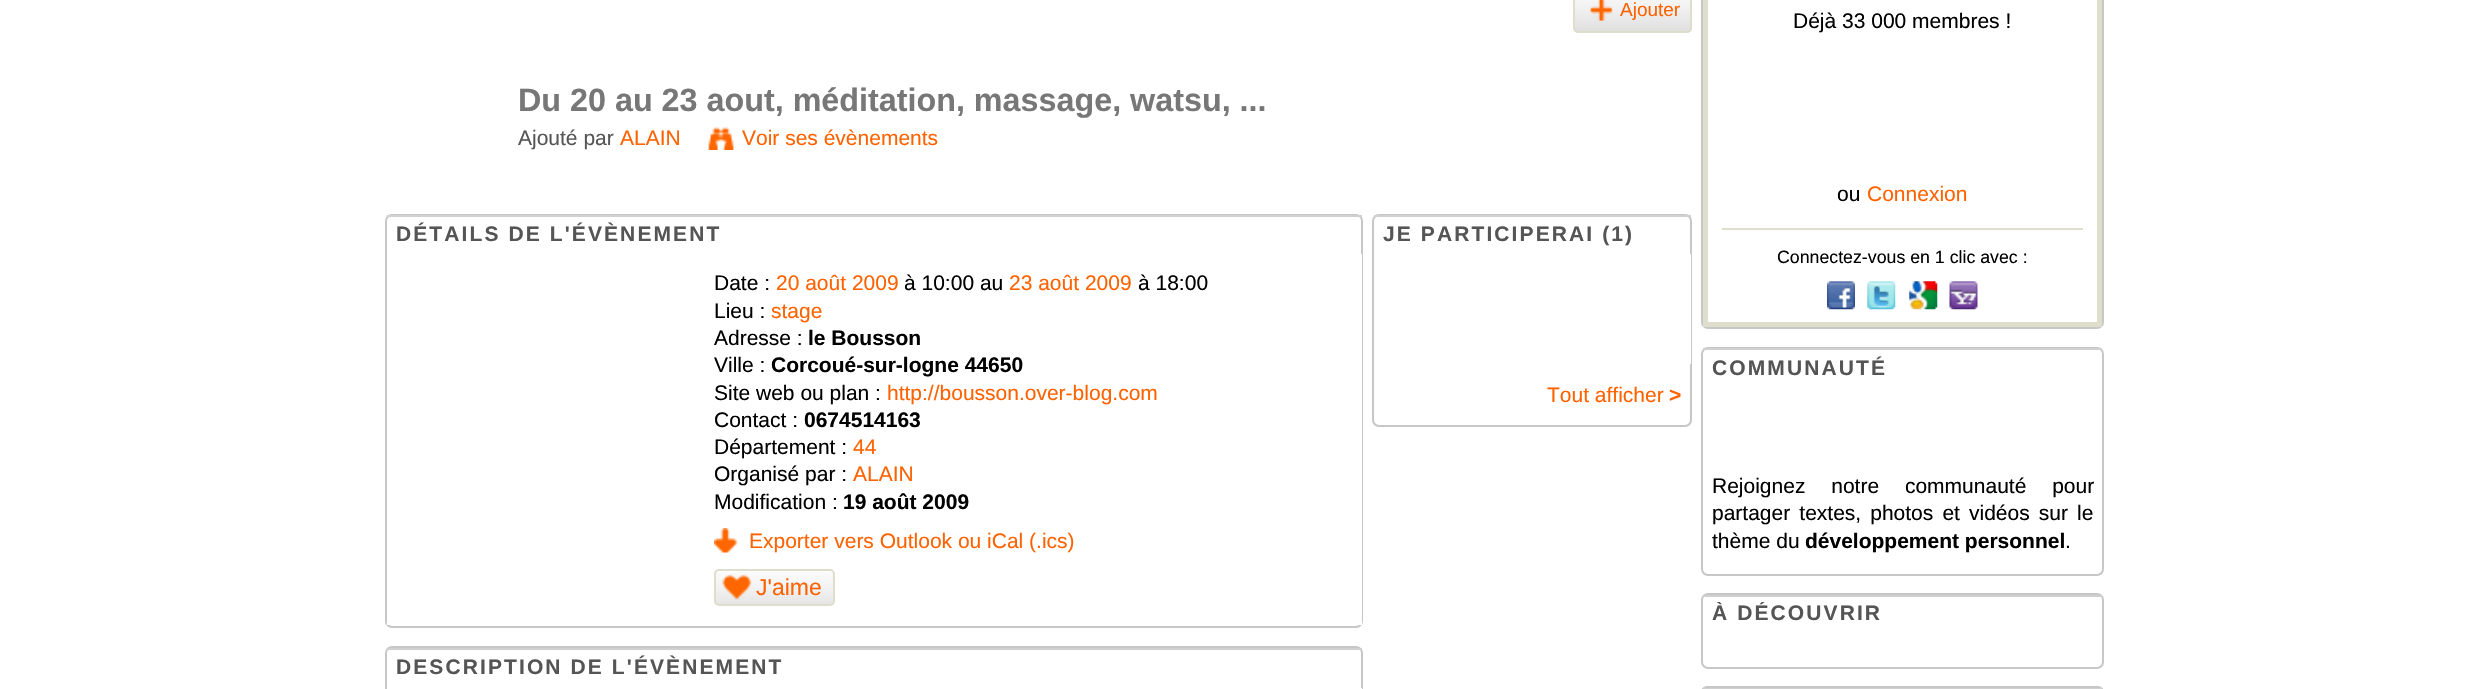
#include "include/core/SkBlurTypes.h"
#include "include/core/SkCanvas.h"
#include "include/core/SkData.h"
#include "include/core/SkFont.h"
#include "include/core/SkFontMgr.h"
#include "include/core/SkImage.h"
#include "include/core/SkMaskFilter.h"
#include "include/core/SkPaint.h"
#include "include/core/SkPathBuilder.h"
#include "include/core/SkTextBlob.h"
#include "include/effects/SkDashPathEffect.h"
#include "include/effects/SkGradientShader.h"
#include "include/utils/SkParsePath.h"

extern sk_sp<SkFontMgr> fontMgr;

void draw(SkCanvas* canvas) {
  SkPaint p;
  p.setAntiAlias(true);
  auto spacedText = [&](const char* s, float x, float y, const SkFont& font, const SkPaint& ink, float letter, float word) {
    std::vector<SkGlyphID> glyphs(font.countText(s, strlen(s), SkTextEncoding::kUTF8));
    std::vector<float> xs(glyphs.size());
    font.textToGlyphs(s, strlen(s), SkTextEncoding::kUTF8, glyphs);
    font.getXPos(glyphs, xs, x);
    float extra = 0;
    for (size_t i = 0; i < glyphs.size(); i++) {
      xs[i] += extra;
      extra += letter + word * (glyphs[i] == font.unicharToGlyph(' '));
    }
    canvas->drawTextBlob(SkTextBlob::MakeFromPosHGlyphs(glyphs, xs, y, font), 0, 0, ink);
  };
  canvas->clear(SK_ColorWHITE);
  canvas->drawImageRect(SkImages::DeferredFromEncodedData(SkData::MakeFromFileName("images/1.png")), SkRect::MakeLTRB(1573, 0, 1692, 33), SkSamplingOptions());
  p.setStyle(SkPaint::kStroke_Style);
  p.setStrokeWidth(2);
  p.setColor(SkColorSetRGB(223, 221, 203));
  canvas->drawRoundRect(SkRect::MakeLTRB(1574, -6, 1691, 32), 4, 4, p);
  canvas->drawImageRect(SkImages::DeferredFromEncodedData(SkData::MakeFromFileName("images/2.png")), SkRect::MakeLTRB(1590, 0, 1613, 21), SkSamplingOptions());
  canvas->drawImageRect(SkImages::DeferredFromEncodedData(SkData::MakeFromFileName("images/3.png")), SkRect::MakeLTRB(708, 127, 734, 150), SkSamplingOptions());
  p.setColor(SkColorSetRGB(199, 199, 199));
  canvas->drawRoundRect(SkRect::MakeLTRB(386, 215, 1362, 627), 6, 6, p);
  p.setStyle(SkPaint::kFill_Style);
  p.setColor(SkColorSetRGB(208, 208, 208));
  canvas->drawRect(SkRect::MakeLTRB(387, 215, 1362, 217), p);
  p.setColor(SK_ColorWHITE);
  canvas->drawRect(SkRect::MakeLTRB(387, 254, 1362, 625), p);
  canvas->drawImageRect(SkImages::DeferredFromEncodedData(SkData::MakeFromFileName("images/4.png")), SkRect::MakeLTRB(714, 528, 738, 553), SkSamplingOptions());
  canvas->drawImageRect(SkImages::DeferredFromEncodedData(SkData::MakeFromFileName("images/5.png")), SkRect::MakeLTRB(714, 572, 835, 604), SkSamplingOptions());
  p.setStyle(SkPaint::kStroke_Style);
  p.setColor(SkColorSetRGB(223, 221, 203));
  canvas->drawRoundRect(SkRect::MakeLTRB(715, 570, 834, 605), 4, 4, p);
  canvas->drawImageRect(SkImages::DeferredFromEncodedData(SkData::MakeFromFileName("images/6.png")), SkRect::MakeLTRB(722, 574, 752, 600), SkSamplingOptions());
  p.setColor(SkColorSetRGB(199, 199, 199));
  canvas->drawRoundRect(SkRect::MakeLTRB(386, 647, 1362, 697), 6, 6, p);
  p.setStyle(SkPaint::kFill_Style);
  p.setColor(SkColorSetRGB(208, 208, 208));
  canvas->drawRect(SkRect::MakeLTRB(387, 648, 1362, 650), p);
  p.setColor(SK_ColorWHITE);
  canvas->drawRect(SkRect::MakeLTRB(1361, 688, 1362, 689), p);
  p.setStyle(SkPaint::kStroke_Style);
  p.setColor(SkColorSetRGB(199, 199, 199));
  canvas->drawRoundRect(SkRect::MakeLTRB(1373, 215, 1691, 426), 6, 6, p);
  p.setStyle(SkPaint::kFill_Style);
  p.setColor(SkColorSetRGB(208, 208, 208));
  canvas->drawRect(SkRect::MakeLTRB(1374, 215, 1691, 217), p);
  p.setColor(SK_ColorWHITE);
  canvas->drawRect(SkRect::MakeLTRB(1690, 254, 1691, 364), p);
  p.setStyle(SkPaint::kStroke_Style);
  p.setColor(SkColorSetRGB(199, 199, 199));
  canvas->drawRoundRect(SkRect::MakeLTRB(1702, -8, 2103, 328), 6, 6, p);
  p.setStrokeWidth(5);
  p.setColor(SkColorSetRGB(223, 221, 203));
  canvas->drawRect(SkRect::MakeLTRB(1705.5f, -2.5f, 2099.5f, 324.5f), p);
  p.setStyle(SkPaint::kFill_Style);
  canvas->drawRect(SkRect::MakeLTRB(1722, 228, 2083, 230), p);
  canvas->drawImageRect(SkImages::DeferredFromEncodedData(SkData::MakeFromFileName("images/7.png")), SkRect::MakeLTRB(1827, 281, 1855, 310), SkSamplingOptions());
  canvas->drawImageRect(SkImages::DeferredFromEncodedData(SkData::MakeFromFileName("images/8.png")), SkRect::MakeLTRB(1867, 281, 1896, 310), SkSamplingOptions());
  canvas->drawImageRect(SkImages::DeferredFromEncodedData(SkData::MakeFromFileName("images/9.png")), SkRect::MakeLTRB(1909, 281, 1938, 310), SkSamplingOptions());
  canvas->drawImageRect(SkImages::DeferredFromEncodedData(SkData::MakeFromFileName("images/10.png")), SkRect::MakeLTRB(1949, 281, 1978, 310), SkSamplingOptions());
  p.setStyle(SkPaint::kStroke_Style);
  p.setStrokeWidth(2);
  p.setColor(SkColorSetRGB(199, 199, 199));
  canvas->drawRoundRect(SkRect::MakeLTRB(1702, 348, 2103, 575), 6, 6, p);
  p.setStyle(SkPaint::kFill_Style);
  p.setColor(SkColorSetRGB(208, 208, 208));
  canvas->drawRect(SkRect::MakeLTRB(1703, 348, 2102, 350), p);
  p.setStyle(SkPaint::kStroke_Style);
  p.setColor(SkColorSetRGB(199, 199, 199));
  canvas->drawRoundRect(SkRect::MakeLTRB(1702, 594, 2103, 668), 6, 6, p);
  p.setStyle(SkPaint::kFill_Style);
  p.setColor(SkColorSetRGB(208, 208, 208));
  canvas->drawRect(SkRect::MakeLTRB(1703, 595, 2102, 597), p);
  p.setStyle(SkPaint::kStroke_Style);
  p.setColor(SkColorSetRGB(199, 199, 199));
  canvas->drawRoundRect(SkRect::MakeLTRB(1702, 687, 2103, 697), 6, 6, p);
  p.setStyle(SkPaint::kFill_Style);
  p.setColor(SkColorSetRGB(208, 208, 208));
  canvas->drawRect(SkRect::MakeLTRB(1703, 688, 2102, 689), p);
  SkFont font1(fontMgr->matchFamilyStyle("Liberation Sans", SkFontStyle::Normal()), 19);
  font1.setSubpixel(true);
  p.setColor(SkColorSetRGB(255, 98, 0));
  canvas->drawString("Ajouter", 1620, 16, font1, p);
  SkFont font2(fontMgr->matchFamilyStyle("Liberation Sans", SkFontStyle::Bold()), 32.3f);
  font2.setSubpixel(true);
  p.setColor(SkColorSetRGB(119, 119, 119));
  canvas->drawString("Du 20 au 23 aout, méditation, massage, watsu, ...", 518, 111, font2, p);
  SkFont font3(fontMgr->matchFamilyStyle("Liberation Sans", SkFontStyle::Normal()), 21);
  font3.setSubpixel(true);
  p.setColor(SkColorSetRGB(85, 85, 85));
  canvas->drawString("Ajouté par", 518, 145, font3, p);
  p.setColor(SkColorSetRGB(255, 98, 0));
  canvas->drawString("ALAIN", 620, 145, font3, p);
  canvas->drawString("Voir ses évènements", 742, 145, font3, p);
  SkFont font4(fontMgr->matchFamilyStyle("Liberation Sans", SkFontStyle::Bold()), 21);
  font4.setSubpixel(true);
  p.setColor(SkColorSetRGB(85, 85, 85));
  spacedText("DÉTAILS DE L'ÉVÈNEMENT", 396, 241, font4, p, 2.1f, 0);
  p.setColor(SK_ColorBLACK);
  canvas->drawString("Date :", 714, 290, font3, p);
  p.setColor(SkColorSetRGB(255, 98, 0));
  canvas->drawString("20 août 2009", 776, 290, font3, p);
  p.setColor(SK_ColorBLACK);
  canvas->drawString("à 10:00 au", 904, 290, font3, p);
  p.setColor(SkColorSetRGB(255, 98, 0));
  canvas->drawString("23 août 2009", 1009, 290, font3, p);
  p.setColor(SK_ColorBLACK);
  canvas->drawString("à 18:00", 1138, 290, font3, p);
  canvas->drawString("Lieu :", 714, 318, font3, p);
  p.setColor(SkColorSetRGB(255, 98, 0));
  canvas->drawString("stage", 771, 318, font3, p);
  p.setColor(SK_ColorBLACK);
  canvas->drawString("Adresse :", 714, 345, font3, p);
  canvas->drawString("le Bousson", 808, 345, font4, p);
  canvas->drawString("Ville :", 714, 372, font3, p);
  canvas->drawString("Corcoué-sur-logne 44650", 771, 372, font4, p);
  canvas->drawString("Site web ou plan :", 714, 400, font3, p);
  p.setColor(SkColorSetRGB(255, 98, 0));
  canvas->drawString("http://bousson.over-blog.com", 887, 400, font3, p);
  p.setColor(SK_ColorBLACK);
  canvas->drawString("Contact :", 714, 427, font3, p);
  canvas->drawString("0674514163", 804, 427, font4, p);
  canvas->drawString("Département :", 714, 454, font3, p);
  p.setColor(SkColorSetRGB(255, 98, 0));
  canvas->drawString("44", 853, 454, font3, p);
  p.setColor(SK_ColorBLACK);
  canvas->drawString("Organisé par :", 714, 481, font3, p);
  p.setColor(SkColorSetRGB(255, 98, 0));
  canvas->drawString("ALAIN", 853, 481, font3, p);
  p.setColor(SK_ColorBLACK);
  canvas->drawString("Modification :", 714, 509, font3, p);
  canvas->drawString("19 août 2009", 843, 509, font4, p);
  p.setColor(SkColorSetRGB(255, 98, 0));
  canvas->drawString("Exporter vers Outlook ou iCal (.ics)", 749, 548, font3, p);
  SkFont font5(fontMgr->matchFamilyStyle("Liberation Sans", SkFontStyle::Normal()), 23);
  font5.setSubpixel(true);
  canvas->drawString("J'aime", 756, 595, font5, p);
  p.setColor(SkColorSetRGB(85, 85, 85));
  spacedText("DESCRIPTION DE L'ÉVÈNEMENT", 396, 674, font4, p, 2.1f, 0);
  spacedText("JE PARTICIPERAI (1)", 1383, 241, font4, p, 2.1f, 0);
  p.setColor(SkColorSetRGB(255, 98, 0));
  canvas->drawString("Tout afficher", 1547, 402, font3, p);
  canvas->drawString(">", 1669, 402, font4, p);
  p.setColor(SK_ColorBLACK);
  canvas->drawString("Déjà 33 000 membres !", 1793, 28, font3, p);
  canvas->drawString("ou", 1837, 201, font3, p);
  p.setColor(SkColorSetRGB(255, 98, 0));
  canvas->drawString("Connexion", 1867, 201, font3, p);
  SkFont font6(fontMgr->matchFamilyStyle("Liberation Sans", SkFontStyle::Normal()), 17.75f);
  font6.setSubpixel(true);
  p.setColor(SK_ColorBLACK);
  canvas->drawString("Connectez-vous en 1 clic avec :", 1777, 263, font6, p);
  p.setColor(SkColorSetRGB(85, 85, 85));
  spacedText("COMMUNAUTÉ", 1712, 375, font4, p, 2.1f, 0);
  p.setColor(SK_ColorBLACK);
  spacedText("Rejoignez notre communauté pour", 1712, 493, font3, p, 0, 20);
  spacedText("partager textes, photos et vidéos sur le", 1712, 520, font3, p, 0, 3.25f);
  canvas->drawString("thème du", 1712, 548, font3, p);
  canvas->drawString("développement personnel", 1805, 548, font4, p);
  canvas->drawString(".", 2065, 548, font3, p);
  canvas->save();
  canvas->clipRect(SkRect::MakeLTRB(1712, 602, 1881, 627));
  p.setColor(SkColorSetRGB(85, 85, 85));
  spacedText("À DÉCOUVRIR", 1712, 620, font4, p, 2.1f, 0);
  canvas->restore();
}
